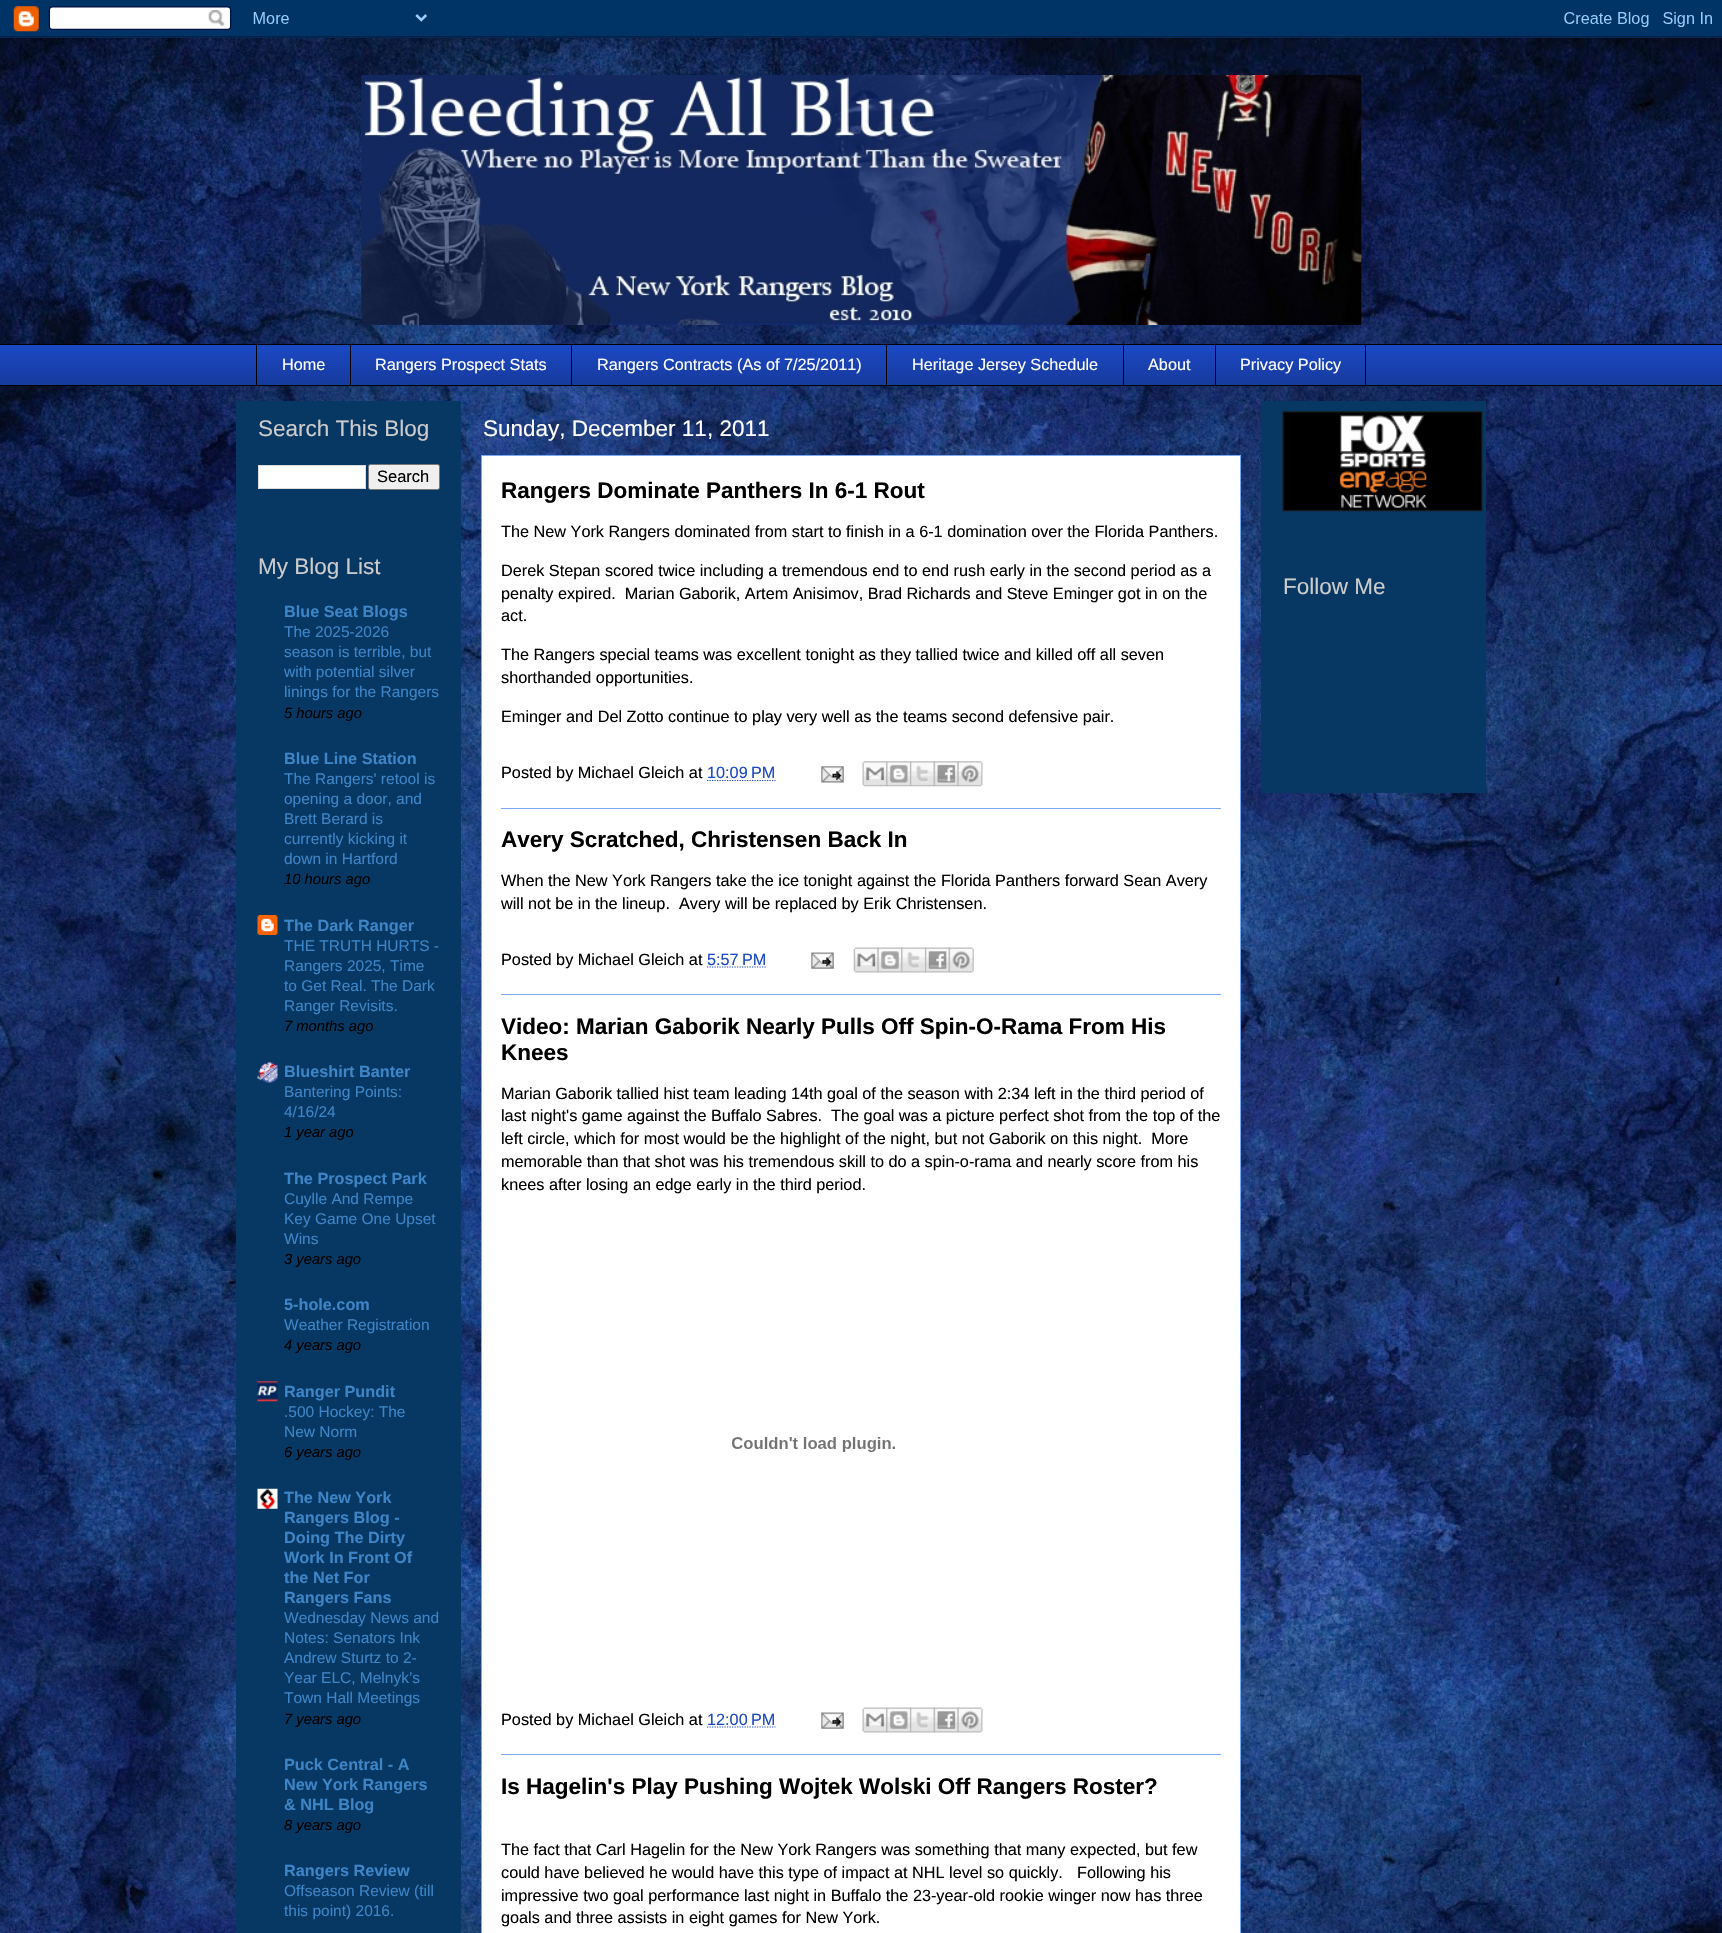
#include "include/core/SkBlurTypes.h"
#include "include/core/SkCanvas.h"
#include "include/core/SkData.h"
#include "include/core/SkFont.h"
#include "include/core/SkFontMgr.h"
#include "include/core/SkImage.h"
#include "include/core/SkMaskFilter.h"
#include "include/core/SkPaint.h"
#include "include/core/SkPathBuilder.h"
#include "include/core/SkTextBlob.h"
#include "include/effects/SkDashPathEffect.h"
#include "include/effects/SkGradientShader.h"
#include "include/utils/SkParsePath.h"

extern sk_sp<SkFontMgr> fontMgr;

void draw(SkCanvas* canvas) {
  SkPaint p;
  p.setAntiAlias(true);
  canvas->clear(SK_ColorWHITE);
  canvas->drawImageRect(SkImages::DeferredFromEncodedData(SkData::MakeFromFileName("images/1.png")), SkRect::MakeLTRB(0, 36, 1722, 1933), SkSamplingOptions());
  canvas->drawImageRect(SkImages::DeferredFromEncodedData(SkData::MakeFromFileName("images/2.png")), SkRect::MakeLTRB(0, 0, 1722, 38), SkSamplingOptions());
  canvas->drawImageRect(SkImages::DeferredFromEncodedData(SkData::MakeFromFileName("images/3.png")), SkRect::MakeLTRB(361, 75, 1362, 325), SkSamplingOptions());
  p.setColor(SkColorSetRGB(27, 72, 195));
  canvas->drawRect(SkRect::MakeLTRB(0, 345, 1722, 385), p);
  canvas->drawImageRect(SkImages::DeferredFromEncodedData(SkData::MakeFromFileName("images/4.png")), SkRect::MakeLTRB(0, 351, 1722, 387), SkSamplingOptions());
  p.setColor(SK_ColorBLACK);
  canvas->drawRect(SkRect::MakeLTRB(0, 344, 1722, 345), p);
  canvas->drawRect(SkRect::MakeLTRB(256, 344, 257, 386), p);
  canvas->drawRect(SkRect::MakeLTRB(350, 344, 351, 386), p);
  canvas->drawRect(SkRect::MakeLTRB(571, 344, 572, 386), p);
  canvas->drawRect(SkRect::MakeLTRB(886, 344, 887, 386), p);
  canvas->drawRect(SkRect::MakeLTRB(1123, 344, 1124, 386), p);
  p.setStyle(SkPaint::kStroke_Style);
  p.setStrokeWidth(1);
  canvas->drawRect(SkRect::MakeLTRB(1215.5f, 344.5f, 1365.5f, 385.5f), p);
  p.setStyle(SkPaint::kFill_Style);
  canvas->drawRect(SkRect::MakeLTRB(0, 385, 1722, 386), p);
  p.setColor(SkColorSetRGB(7, 55, 99));
  canvas->drawRect(SkRect::MakeLTRB(236, 401, 461, 1933), p);
  p.setColor(SK_ColorWHITE);
  canvas->drawRect(SkRect::MakeLTRB(258.5f, 465.5f, 365.5f, 488.5f), p);
  p.setStyle(SkPaint::kStroke_Style);
  p.setColor(SkColorSetRGB(221, 221, 221));
  canvas->drawRect(SkRect::MakeLTRB(258.5f, 465.5f, 365.5f, 488.5f), p);
  p.setStyle(SkPaint::kFill_Style);
  p.setColor(SkColorSetRGB(239, 239, 239));
  canvas->drawRoundRect(SkRect::MakeLTRB(368.5f, 464.5f, 439.5f, 489.5f), 2, 2, p);
  p.setStyle(SkPaint::kStroke_Style);
  p.setColor(SkColorSetRGB(118, 118, 118));
  canvas->drawRoundRect(SkRect::MakeLTRB(368.5f, 464.5f, 439.5f, 489.5f), 2, 2, p);
  canvas->drawImageRect(SkImages::DeferredFromEncodedData(SkData::MakeFromFileName("images/5.png")), SkRect::MakeLTRB(257, 915, 278, 935), SkSamplingOptions());
  canvas->drawImageRect(SkImages::DeferredFromEncodedData(SkData::MakeFromFileName("images/6.png")), SkRect::MakeLTRB(257, 1062, 278, 1083), SkSamplingOptions());
  canvas->drawImageRect(SkImages::DeferredFromEncodedData(SkData::MakeFromFileName("images/7.png")), SkRect::MakeLTRB(257, 1381, 278, 1402), SkSamplingOptions());
  canvas->drawImageRect(SkImages::DeferredFromEncodedData(SkData::MakeFromFileName("images/8.png")), SkRect::MakeLTRB(257, 1488, 278, 1509), SkSamplingOptions());
  p.setStyle(SkPaint::kFill_Style);
  p.setColor(SK_ColorWHITE);
  canvas->drawRect(SkRect::MakeLTRB(481.5f, 455.5f, 1240.5f, 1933.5f), p);
  p.setStyle(SkPaint::kStroke_Style);
  p.setColor(SkColorSetRGB(123, 168, 243));
  canvas->drawRect(SkRect::MakeLTRB(481.5f, 455.5f, 1240.5f, 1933.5f), p);
  p.setStrokeWidth(1.2f);
  p.setColor(SkColorSetRGB(27, 72, 195));
  p.setPathEffect(SkDashPathEffect::Make({{1.25f, 1.25f}}, 0));
  canvas->drawPath(SkPathBuilder().moveTo(707, 780.5f).lineTo(775.5f, 780.5f).detach(), p);
  p.setPathEffect(nullptr);
  canvas->drawImageRect(SkImages::DeferredFromEncodedData(SkData::MakeFromFileName("images/9.png")), SkRect::MakeLTRB(821, 766, 844, 783), SkSamplingOptions());
  canvas->drawImageRect(SkImages::DeferredFromEncodedData(SkData::MakeFromFileName("images/10.png")), SkRect::MakeLTRB(862, 761, 888, 787), SkSamplingOptions());
  canvas->drawImageRect(SkImages::DeferredFromEncodedData(SkData::MakeFromFileName("images/11.png")), SkRect::MakeLTRB(886, 761, 912, 787), SkSamplingOptions());
  canvas->drawImageRect(SkImages::DeferredFromEncodedData(SkData::MakeFromFileName("images/12.png")), SkRect::MakeLTRB(910, 761, 935, 787), SkSamplingOptions());
  canvas->drawImageRect(SkImages::DeferredFromEncodedData(SkData::MakeFromFileName("images/13.png")), SkRect::MakeLTRB(933, 761, 959, 787), SkSamplingOptions());
  canvas->drawImageRect(SkImages::DeferredFromEncodedData(SkData::MakeFromFileName("images/14.png")), SkRect::MakeLTRB(957, 761, 983, 787), SkSamplingOptions());
  p.setStyle(SkPaint::kFill_Style);
  p.setColor(SkColorSetRGB(123, 168, 243));
  canvas->drawRect(SkRect::MakeLTRB(501, 808, 1221, 809), p);
  p.setStyle(SkPaint::kStroke_Style);
  p.setColor(SkColorSetRGB(27, 72, 195));
  p.setPathEffect(SkDashPathEffect::Make({{1.25f, 1.25f}}, 0));
  canvas->drawPath(SkPathBuilder().moveTo(707, 967).lineTo(766.5f, 967).detach(), p);
  p.setPathEffect(nullptr);
  canvas->drawImageRect(SkImages::DeferredFromEncodedData(SkData::MakeFromFileName("images/15.png")), SkRect::MakeLTRB(811, 952, 834, 969), SkSamplingOptions());
  canvas->drawImageRect(SkImages::DeferredFromEncodedData(SkData::MakeFromFileName("images/16.png")), SkRect::MakeLTRB(853, 947, 879, 973), SkSamplingOptions());
  canvas->drawImageRect(SkImages::DeferredFromEncodedData(SkData::MakeFromFileName("images/17.png")), SkRect::MakeLTRB(877, 947, 903, 973), SkSamplingOptions());
  canvas->drawImageRect(SkImages::DeferredFromEncodedData(SkData::MakeFromFileName("images/18.png")), SkRect::MakeLTRB(901, 947, 927, 973), SkSamplingOptions());
  canvas->drawImageRect(SkImages::DeferredFromEncodedData(SkData::MakeFromFileName("images/19.png")), SkRect::MakeLTRB(925, 947, 950, 973), SkSamplingOptions());
  canvas->drawImageRect(SkImages::DeferredFromEncodedData(SkData::MakeFromFileName("images/20.png")), SkRect::MakeLTRB(948, 947, 974, 973), SkSamplingOptions());
  p.setStyle(SkPaint::kFill_Style);
  p.setColor(SkColorSetRGB(123, 168, 243));
  canvas->drawRect(SkRect::MakeLTRB(501, 994, 1221, 995), p);
  canvas->drawImageRect(SkImages::DeferredFromEncodedData(SkData::MakeFromFileName("images/21.png")), SkRect::MakeLTRB(732, 1437, 895, 1452), SkSamplingOptions());
  p.setStyle(SkPaint::kStroke_Style);
  p.setColor(SkColorSetRGB(27, 72, 195));
  p.setPathEffect(SkDashPathEffect::Make({{1.25f, 1.25f}}, 0));
  canvas->drawPath(SkPathBuilder().moveTo(707, 1727).lineTo(775.5f, 1727).detach(), p);
  p.setPathEffect(nullptr);
  canvas->drawImageRect(SkImages::DeferredFromEncodedData(SkData::MakeFromFileName("images/15.png")), SkRect::MakeLTRB(821, 1712, 844, 1729), SkSamplingOptions());
  canvas->drawImageRect(SkImages::DeferredFromEncodedData(SkData::MakeFromFileName("images/22.png")), SkRect::MakeLTRB(862, 1707, 888, 1733), SkSamplingOptions());
  canvas->drawImageRect(SkImages::DeferredFromEncodedData(SkData::MakeFromFileName("images/23.png")), SkRect::MakeLTRB(886, 1707, 912, 1733), SkSamplingOptions());
  canvas->drawImageRect(SkImages::DeferredFromEncodedData(SkData::MakeFromFileName("images/24.png")), SkRect::MakeLTRB(910, 1707, 935, 1733), SkSamplingOptions());
  canvas->drawImageRect(SkImages::DeferredFromEncodedData(SkData::MakeFromFileName("images/25.png")), SkRect::MakeLTRB(933, 1707, 959, 1733), SkSamplingOptions());
  canvas->drawImageRect(SkImages::DeferredFromEncodedData(SkData::MakeFromFileName("images/26.png")), SkRect::MakeLTRB(957, 1707, 983, 1733), SkSamplingOptions());
  p.setStyle(SkPaint::kFill_Style);
  p.setColor(SkColorSetRGB(123, 168, 243));
  canvas->drawRect(SkRect::MakeLTRB(501, 1754, 1221, 1755), p);
  p.setColor(SkColorSetRGB(7, 55, 99));
  canvas->drawRect(SkRect::MakeLTRB(1261, 401, 1486, 793), p);
  canvas->drawImageRect(SkImages::DeferredFromEncodedData(SkData::MakeFromFileName("images/27.png")), SkRect::MakeLTRB(1282, 411, 1483, 512), SkSamplingOptions());
  SkFont font1(fontMgr->matchFamilyStyle("Liberation Sans", SkFontStyle::Normal()), 16.25f);
  font1.setSubpixel(true);
  p.setColor(SK_ColorWHITE);
  canvas->drawString("Home", 282, 370, font1, p);
  canvas->drawString("Rangers Prospect Stats", 375, 370, font1, p);
  canvas->drawString("Rangers Contracts (As of 7/25/2011)", 597, 370, font1, p);
  canvas->drawString("Heritage Jersey Schedule", 912, 370, font1, p);
  canvas->drawString("About", 1148, 370, font1, p);
  canvas->drawString("Privacy Policy", 1240, 370, font1, p);
  SkFont font2(fontMgr->matchFamilyStyle("Liberation Sans", SkFontStyle::Normal()), 22.5f);
  font2.setSubpixel(true);
  p.setColor(SkColorSetRGB(204, 204, 204));
  canvas->drawString("Search This Blog", 258, 436, font2, p);
  SkFont font3(fontMgr->matchFamilyStyle("Liberation Sans", SkFontStyle::Normal()), 16.5f);
  font3.setSubpixel(true);
  p.setColor(SK_ColorBLACK);
  canvas->drawString("Search", 377, 482, font3, p);
  p.setColor(SkColorSetRGB(204, 204, 204));
  canvas->drawString("My Blog List", 258, 574, font2, p);
  SkFont font4(fontMgr->matchFamilyStyle("Liberation Sans", SkFontStyle::Bold()), 16.25f);
  font4.setSubpixel(true);
  p.setColor(SkColorSetRGB(61, 133, 198));
  canvas->drawString("Blue Seat Blogs", 284, 617, font4, p);
  SkFont font5(fontMgr->matchFamilyStyle("Liberation Sans", SkFontStyle::Normal()), 15.5f);
  font5.setSubpixel(true);
  canvas->drawString("The 2025-2026", 284, 637, font5, p);
  canvas->drawString("season is terrible, but", 284, 657, font5, p);
  canvas->drawString("with potential silver", 284, 677, font5, p);
  canvas->drawString("linings for the Rangers", 284, 697, font5, p);
  SkFont font6(fontMgr->matchFamilyStyle("Liberation Sans", SkFontStyle::Italic()), 14.75f);
  font6.setSubpixel(true);
  p.setColor(SK_ColorBLACK);
  canvas->drawString("5 hours ago", 284, 718, font6, p);
  p.setColor(SkColorSetRGB(61, 133, 198));
  canvas->drawString("Blue Line Station", 284, 764, font4, p);
  canvas->drawString("The Rangers' retool is", 284, 784, font5, p);
  canvas->drawString("opening a door, and", 284, 804, font5, p);
  canvas->drawString("Brett Berard is", 284, 824, font5, p);
  canvas->drawString("currently kicking it", 284, 844, font5, p);
  canvas->drawString("down in Hartford", 284, 864, font5, p);
  p.setColor(SK_ColorBLACK);
  canvas->drawString("10 hours ago", 284, 884, font6, p);
  p.setColor(SkColorSetRGB(61, 133, 198));
  canvas->drawString("The Dark Ranger", 284, 931, font4, p);
  canvas->drawString("THE TRUTH HURTS -", 284, 951, font5, p);
  canvas->drawString("Rangers 2025, Time", 284, 971, font5, p);
  canvas->drawString("to Get Real. The Dark", 284, 991, font5, p);
  canvas->drawString("Ranger Revisits.", 284, 1011, font5, p);
  p.setColor(SK_ColorBLACK);
  canvas->drawString("7 months ago", 284, 1031, font6, p);
  p.setColor(SkColorSetRGB(61, 133, 198));
  canvas->drawString("Blueshirt Banter", 284, 1077, font4, p);
  canvas->drawString("Bantering Points:", 284, 1097, font5, p);
  canvas->drawString("4/16/24", 284, 1117, font5, p);
  p.setColor(SK_ColorBLACK);
  canvas->drawString("1 year ago", 284, 1137, font6, p);
  p.setColor(SkColorSetRGB(61, 133, 198));
  canvas->drawString("The Prospect Park", 284, 1184, font4, p);
  canvas->drawString("Cuylle And Rempe", 284, 1204, font5, p);
  canvas->drawString("Key Game One Upset", 284, 1224, font5, p);
  canvas->drawString("Wins", 284, 1244, font5, p);
  p.setColor(SK_ColorBLACK);
  canvas->drawString("3 years ago", 284, 1264, font6, p);
  p.setColor(SkColorSetRGB(61, 133, 198));
  canvas->drawString("5-hole.com", 284, 1310, font4, p);
  canvas->drawString("Weather Registration", 284, 1330, font5, p);
  p.setColor(SK_ColorBLACK);
  canvas->drawString("4 years ago", 284, 1350, font6, p);
  p.setColor(SkColorSetRGB(61, 133, 198));
  canvas->drawString("Ranger Pundit", 284, 1397, font4, p);
  canvas->drawString(".500 Hockey: The", 284, 1417, font5, p);
  canvas->drawString("New Norm", 284, 1437, font5, p);
  p.setColor(SK_ColorBLACK);
  canvas->drawString("6 years ago", 284, 1457, font6, p);
  p.setColor(SkColorSetRGB(61, 133, 198));
  canvas->drawString("The New York", 284, 1503, font4, p);
  canvas->drawString("Rangers Blog -", 284, 1523, font4, p);
  canvas->drawString("Doing The Dirty", 284, 1543, font4, p);
  canvas->drawString("Work In Front Of", 284, 1563, font4, p);
  canvas->drawString("the Net For", 284, 1583, font4, p);
  canvas->drawString("Rangers Fans", 284, 1603, font4, p);
  canvas->drawString("Wednesday News and", 284, 1623, font5, p);
  canvas->drawString("Notes: Senators Ink", 284, 1643, font5, p);
  canvas->drawString("Andrew Sturtz to 2-", 284, 1663, font5, p);
  canvas->drawString("Year ELC, Melnyk’s", 284, 1683, font5, p);
  canvas->drawString("Town Hall Meetings", 284, 1703, font5, p);
  p.setColor(SK_ColorBLACK);
  canvas->drawString("7 years ago", 284, 1724, font6, p);
  p.setColor(SkColorSetRGB(61, 133, 198));
  canvas->drawString("Puck Central - A", 284, 1770, font4, p);
  canvas->drawString("New York Rangers", 284, 1790, font4, p);
  canvas->drawString("& NHL Blog", 284, 1810, font4, p);
  p.setColor(SK_ColorBLACK);
  canvas->drawString("8 years ago", 284, 1830, font6, p);
  p.setColor(SkColorSetRGB(61, 133, 198));
  canvas->drawString("Rangers Review", 284, 1876, font4, p);
  canvas->drawString("Offseason Review (till", 284, 1896, font5, p);
  canvas->drawString("this point) 2016.", 284, 1916, font5, p);
  p.setColor(SK_ColorWHITE);
  canvas->drawString("Sunday, December 11, 2011", 483, 436, font2, p);
  SkFont font7(fontMgr->matchFamilyStyle("Liberation Sans", SkFontStyle::Bold()), 22.5f);
  font7.setSubpixel(true);
  p.setColor(SK_ColorBLACK);
  canvas->drawString("Rangers Dominate Panthers In 6-1 Rout", 501, 498, font7, p);
  canvas->drawString("The New York Rangers dominated from start to finish in a 6-1 domination over the Florida Panthers.", 501, 537, font1, p);
  canvas->drawString("Derek Stepan scored twice including a tremendous end to end rush early in the second period as a", 501, 576, font1, p);
  canvas->drawString("penalty expired.  Marian Gaborik, Artem Anisimov, Brad Richards and Steve Eminger got in on the", 501, 599, font1, p);
  canvas->drawString("act.", 501, 621, font1, p);
  canvas->drawString("The Rangers special teams was excellent tonight as they tallied twice and killed off all seven", 501, 660, font1, p);
  canvas->drawString("shorthanded opportunities.", 501, 683, font1, p);
  canvas->drawString("Eminger and Del Zotto continue to play very well as the teams second defensive pair.", 501, 722, font1, p);
  canvas->drawString("Posted by Michael Gleich at", 501, 778, font1, p);
  p.setColor(SkColorSetRGB(27, 72, 195));
  canvas->drawString("10:09 PM", 707, 778, font1, p);
  p.setColor(SK_ColorBLACK);
  canvas->drawString("Avery Scratched, Christensen Back In", 501, 847, font7, p);
  canvas->drawString("When the New York Rangers take the ice tonight against the Florida Panthers forward Sean Avery", 501, 886, font1, p);
  canvas->drawString("will not be in the lineup.  Avery will be replaced by Erik Christensen.", 501, 909, font1, p);
  canvas->drawString("Posted by Michael Gleich at", 501, 965, font1, p);
  p.setColor(SkColorSetRGB(27, 72, 195));
  canvas->drawString("5:57 PM", 707, 965, font1, p);
  p.setColor(SK_ColorBLACK);
  canvas->drawString("Video: Marian Gaborik Nearly Pulls Off Spin-O-Rama From His", 501, 1034, font7, p);
  canvas->drawString("Knees", 501, 1060, font7, p);
  canvas->drawString("Marian Gaborik tallied hist team leading 14th goal of the season with 2:34 left in the third period of", 501, 1099, font1, p);
  canvas->drawString("last night's game against the Buffalo Sabres.  The goal was a picture perfect shot from the top of the", 501, 1121, font1, p);
  canvas->drawString("left circle, which for most would be the highlight of the night, but not Gaborik on this night.  More", 501, 1144, font1, p);
  canvas->drawString("memorable than that shot was his tremendous skill to do a spin-o-rama and nearly score from his", 501, 1167, font1, p);
  canvas->drawString("knees after losing an edge early in the third period.", 501, 1190, font1, p);
  canvas->drawString("Posted by Michael Gleich at", 501, 1725, font1, p);
  p.setColor(SkColorSetRGB(27, 72, 195));
  canvas->drawString("12:00 PM", 707, 1725, font1, p);
  p.setColor(SK_ColorBLACK);
  canvas->drawString("Is Hagelin's Play Pushing Wojtek Wolski Off Rangers Roster?", 501, 1794, font7, p);
  canvas->drawString("The fact that Carl Hagelin for the New York Rangers was something that many expected, but few", 501, 1855, font1, p);
  canvas->drawString("could have believed he would have this type of impact at NHL level so quickly.", 501, 1878, font1, p);
  canvas->drawString("Following his", 1077, 1878, font1, p);
  canvas->drawString("impressive two goal performance last night in Buffalo the 23-year-old rookie winger now has three", 501, 1901, font1, p);
  canvas->drawString("goals and three assists in eight games for New York.", 501, 1923, font1, p);
  p.setColor(SkColorSetRGB(204, 204, 204));
  canvas->drawString("Follow Me", 1283, 594, font2, p);
}
